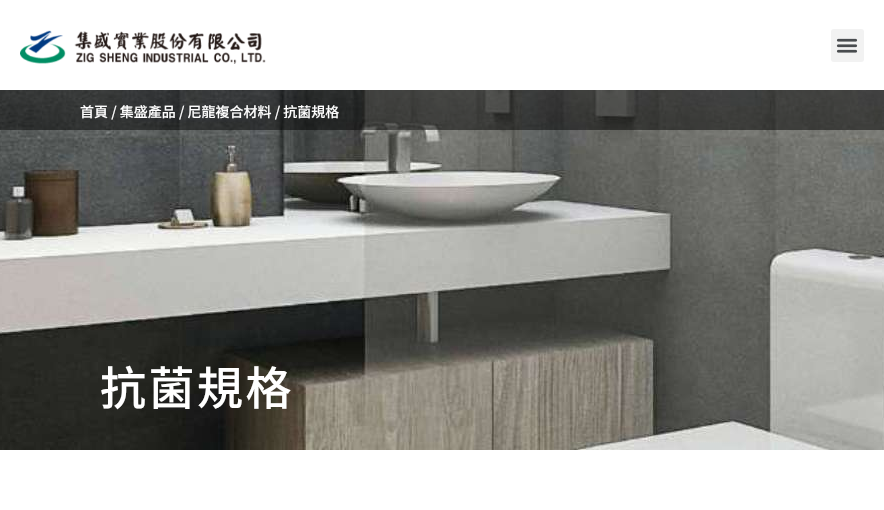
#include "include/core/SkBlurTypes.h"
#include "include/core/SkCanvas.h"
#include "include/core/SkData.h"
#include "include/core/SkFont.h"
#include "include/core/SkFontMgr.h"
#include "include/core/SkImage.h"
#include "include/core/SkMaskFilter.h"
#include "include/core/SkPaint.h"
#include "include/core/SkPathBuilder.h"
#include "include/core/SkTextBlob.h"
#include "include/effects/SkDashPathEffect.h"
#include "include/effects/SkGradientShader.h"
#include "include/utils/SkParsePath.h"

extern sk_sp<SkFontMgr> fontMgr;

void draw(SkCanvas* canvas) {
  SkPaint p;
  p.setAntiAlias(true);
  auto spacedText = [&](const char* s, float x, float y, const SkFont& font, const SkPaint& ink, float letter, float word) {
    std::vector<SkGlyphID> glyphs(font.countText(s, strlen(s), SkTextEncoding::kUTF8));
    std::vector<float> xs(glyphs.size());
    font.textToGlyphs(s, strlen(s), SkTextEncoding::kUTF8, glyphs);
    font.getXPos(glyphs, xs, x);
    float extra = 0;
    for (size_t i = 0; i < glyphs.size(); i++) {
      xs[i] += extra;
      extra += letter + word * (glyphs[i] == font.unicharToGlyph(' '));
    }
    canvas->drawTextBlob(SkTextBlob::MakeFromPosHGlyphs(glyphs, xs, y, font), 0, 0, ink);
  };
  canvas->clear(SK_ColorWHITE);
  canvas->drawImageRect(SkImages::DeferredFromEncodedData(SkData::MakeFromFileName("images/1.png")), SkRect::MakeLTRB(20, 30, 266, 64), SkSamplingOptions());
  p.setColor(SkColorSetRGB(242, 242, 242));
  canvas->drawRoundRect(SkRect::MakeLTRB(831, 29, 864, 62), 3, 3, p);
  canvas->drawImageRect(SkImages::DeferredFromEncodedData(SkData::MakeFromFileName("images/2.png")), SkRect::MakeLTRB(836, 38, 858, 53), SkSamplingOptions());
  canvas->drawImageRect(SkImages::DeferredFromEncodedData(SkData::MakeFromFileName("images/3.png")), SkRect::MakeLTRB(0, 90, 884, 450), SkSamplingOptions());
  p.setColor(SkColorSetARGB(128, 0, 0, 0));
  canvas->drawRect(SkRect::MakeLTRB(0, 90, 884, 130), p);
  SkFont font1(fontMgr->matchFamilyStyle("Noto Sans TC", SkFontStyle(500, SkFontStyle::kNormal_Width, SkFontStyle::kUpright_Slant)), 14);
  font1.setSubpixel(true);
  p.setColor(SK_ColorWHITE);
  canvas->drawString("首頁 / 集盛產品 / 尼龍複合材料 / 抗菌規格", 80, 117, font1, p);
  SkFont font2(fontMgr->matchFamilyStyle("Noto Sans TC", SkFontStyle(500, SkFontStyle::kNormal_Width, SkFontStyle::kUpright_Slant)), 46);
  font2.setSubpixel(true);
  spacedText("抗菌規格", 100, 405, font2, p, 2.5f, 0);
}
